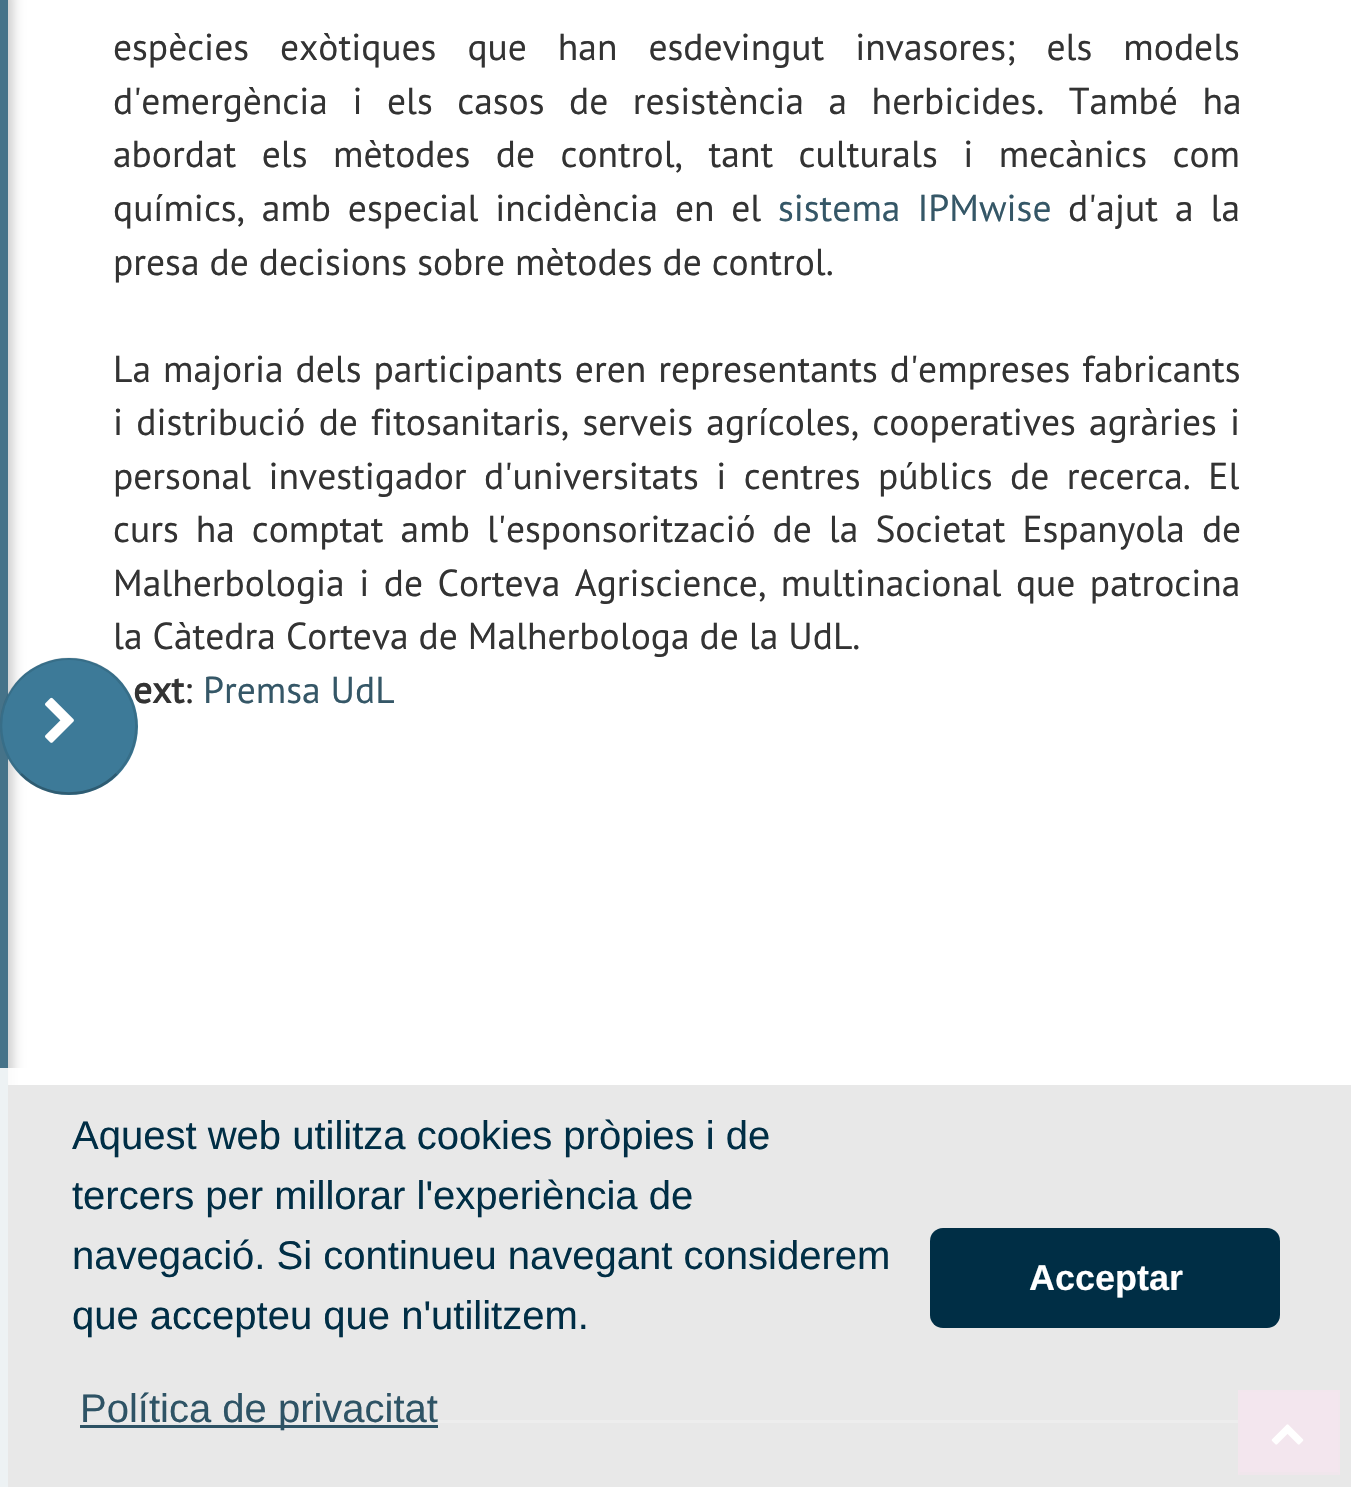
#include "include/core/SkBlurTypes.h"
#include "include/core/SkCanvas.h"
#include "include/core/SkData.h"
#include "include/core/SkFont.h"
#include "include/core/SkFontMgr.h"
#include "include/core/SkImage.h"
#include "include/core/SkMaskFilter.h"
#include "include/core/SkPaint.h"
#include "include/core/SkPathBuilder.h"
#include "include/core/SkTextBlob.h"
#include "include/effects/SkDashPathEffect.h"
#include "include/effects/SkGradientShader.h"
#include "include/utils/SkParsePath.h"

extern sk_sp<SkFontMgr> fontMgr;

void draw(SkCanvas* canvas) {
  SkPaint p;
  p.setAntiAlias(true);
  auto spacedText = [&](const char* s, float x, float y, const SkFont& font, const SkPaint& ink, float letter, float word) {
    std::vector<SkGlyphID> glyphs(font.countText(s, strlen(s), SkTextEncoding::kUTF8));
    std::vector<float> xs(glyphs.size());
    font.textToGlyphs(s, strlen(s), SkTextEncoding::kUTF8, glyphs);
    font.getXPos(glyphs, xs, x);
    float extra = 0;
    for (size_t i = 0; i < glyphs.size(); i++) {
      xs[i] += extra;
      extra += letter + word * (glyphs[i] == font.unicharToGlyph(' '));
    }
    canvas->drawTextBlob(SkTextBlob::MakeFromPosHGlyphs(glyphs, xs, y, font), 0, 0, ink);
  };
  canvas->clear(SkColorSetRGB(17, 17, 17));
  p.setColor(SK_ColorWHITE);
  canvas->drawRect(SkRect::MakeLTRB(8, 0, 1351, 1085), p);
  p.setColor(SkColorSetARGB(51, 0, 0, 0));
  p.setMaskFilter(SkMaskFilter::MakeBlur(kNormal_SkBlurStyle, 6));
  canvas->drawRect(SkRect::MakeLTRB(-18, -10, 13, 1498), p);
  p.setMaskFilter(nullptr);
  p.setColor(SkColorSetRGB(70, 115, 137));
  canvas->drawRect(SkRect::MakeLTRB(0, 0, 8, 1487), p);
  p.setColor(SkColorSetRGB(68, 68, 68));
  canvas->drawRect(SkRect::MakeLTRB(88, 1420, 1238, 1423), p);
  p.setColor(SkColorSetRGB(132, 0, 72));
  canvas->drawRect(SkRect::MakeLTRB(1238, 1390, 1340, 1475), p);
  p.setColor(SkColorSetRGB(119, 0, 65));
  canvas->drawPath(SkPathBuilder().moveTo(1238, 1390).lineTo(1340, 1390).lineTo(1338, 1392).lineTo(1240, 1392).close().detach(), p);
  p.setColor(SkColorSetARGB(26, 0, 0, 0));
  canvas->drawPath(SkPathBuilder().moveTo(1340, 1390).lineTo(1340, 1475).lineTo(1338, 1472).lineTo(1338, 1392).close().detach(), p);
  p.setColor(SkColorSetARGB(64, 0, 0, 0));
  canvas->drawPath(SkPathBuilder().moveTo(1340, 1475).lineTo(1238, 1475).lineTo(1240, 1472).lineTo(1338, 1472).close().detach(), p);
  p.setColor(SkColorSetARGB(26, 0, 0, 0));
  canvas->drawPath(SkPathBuilder().moveTo(1238, 1475).lineTo(1238, 1390).lineTo(1240, 1392).lineTo(1240, 1472).close().detach(), p);
  canvas->drawImageRect(SkImages::DeferredFromEncodedData(SkData::MakeFromFileName("images/2.png")), SkRect::MakeLTRB(1271, 1424, 1304, 1445), SkSamplingOptions());
  p.setColor(SkColorSetARGB(230, 255, 255, 255));
  canvas->drawRect(SkRect::MakeLTRB(0, 1068, 1351, 1487), p);
  p.setColor(SkColorSetRGB(46, 83, 101));
  canvas->drawRect(SkRect::MakeLTRB(80, 1425, 438, 1428), p);
  p.setColor(SkColorSetRGB(0, 46, 69));
  canvas->drawRoundRect(SkRect::MakeLTRB(930, 1228, 1280, 1328), 13, 13, p);
  SkFont font1(fontMgr->matchFamilyStyle("PT Sans", SkFontStyle::Normal()), 37.5f);
  font1.setSubpixel(true);
  p.setColor(SkColorSetRGB(51, 51, 51));
  spacedText("espècies exòtiques que han esdevingut invasores; els models", 113, 60, font1, p, 0, 21);
  spacedText("d'emergència i els casos de resistència a herbicides. També ha", 113, 114, font1, p, 0, 14.5f);
  spacedText("abordat els mètodes de control, tant culturals i mecànics com", 113, 167, font1, p, 0, 15.5f);
  spacedText("químics, amb especial incidència en el", 113, 221, font1, p, 0, 6.75f);
  p.setColor(SkColorSetRGB(53, 87, 103));
  spacedText("sistema IPMwise", 778, 221, font1, p, 0, 7);
  p.setColor(SkColorSetRGB(51, 51, 51));
  spacedText("d'ajut a la", 1068, 221, font1, p, 0, 7);
  canvas->drawString("presa de decisions sobre mètodes de control.", 113, 275, font1, p);
  spacedText("La majoria dels participants eren representants d'empreses fabricants", 113, 382, font1, p, 0, 2);
  spacedText("i distribució de fitosanitaris, serveis agrícoles, cooperatives agràries i", 113, 435, font1, p, 0, 3.25f);
  spacedText("personal investigador d'universitats i centres públics de recerca. El", 113, 489, font1, p, 0, 7.5f);
  spacedText("curs ha comptat amb l'esponsorització de la Societat Espanyola de", 113, 542, font1, p, 0, 7);
  spacedText("Malherbologia i de Corteva Agriscience, multinacional que patrocina", 113, 596, font1, p, 0, 4.5f);
  canvas->drawString("la Càtedra Corteva de Malherbologa de la UdL.", 113, 649, font1, p);
  SkFont font2(fontMgr->matchFamilyStyle("PT Sans", SkFontStyle::Bold()), 37.5f);
  font2.setSubpixel(true);
  canvas->drawString("ext", 133, 703, font2, p);
  canvas->drawString(":", 184, 703, font1, p);
  p.setColor(SkColorSetRGB(53, 87, 103));
  canvas->drawString("Premsa UdL", 203, 703, font1, p);
  p.setColor(SkColorSetRGB(61, 122, 152));
  canvas->drawRoundRect(SkRect::MakeLTRB(0, 658, 138, 795), 68.5f, 68.5f, p);
  p.setStyle(SkPaint::kStroke_Style);
  p.setStrokeWidth(2.5f);
  p.setColor(SkColorSetARGB(64, 0, 0, 0));
  canvas->drawPath(SkPathBuilder().moveTo(116.5f, 774).cubicTo(90.5f, 800, 47, 800, 21, 774).detach(), p);
  p.setColor(SkColorSetARGB(26, 0, 0, 0));
  canvas->drawPath(SkPathBuilder().moveTo(21, 774).cubicTo(8.5f, 761.5f, 1.5f, 744, 1, 726).cubicTo(1, 666.5f, 74.5f, 636.5f, 116.5f, 678.5f).cubicTo(126, 688, 132.5f, 700, 135, 713).cubicTo(139.5f, 735, 132.5f, 758, 116.5f, 774).detach(), p);
  canvas->drawImageRect(SkImages::DeferredFromEncodedData(SkData::MakeFromFileName("images/1.png")), SkRect::MakeLTRB(45, 697, 74, 743), SkSamplingOptions());
  SkFont font3(fontMgr->matchFamilyStyle("Liberation Sans", SkFontStyle::Normal()), 40);
  font3.setSubpixel(true);
  p.setStyle(SkPaint::kFill_Style);
  p.setColor(SkColorSetRGB(0, 46, 69));
  canvas->drawString("Aquest web utilitza cookies pròpies i de", 72, 1149, font3, p);
  canvas->drawString("tercers per millorar l'experiència de", 72, 1209, font3, p);
  canvas->drawString("navegació. Si continueu navegant considerem", 72, 1269, font3, p);
  canvas->drawString("que accepteu que n'utilitzem.", 72, 1329, font3, p);
  p.setColor(SkColorSetRGB(46, 83, 101));
  canvas->drawString("Política de privacitat", 80, 1422, font3, p);
  SkFont font4(fontMgr->matchFamilyStyle("Liberation Sans", SkFontStyle::Bold()), 36);
  font4.setSubpixel(true);
  p.setColor(SK_ColorWHITE);
  canvas->drawString("Acceptar", 1029, 1290, font4, p);
}
